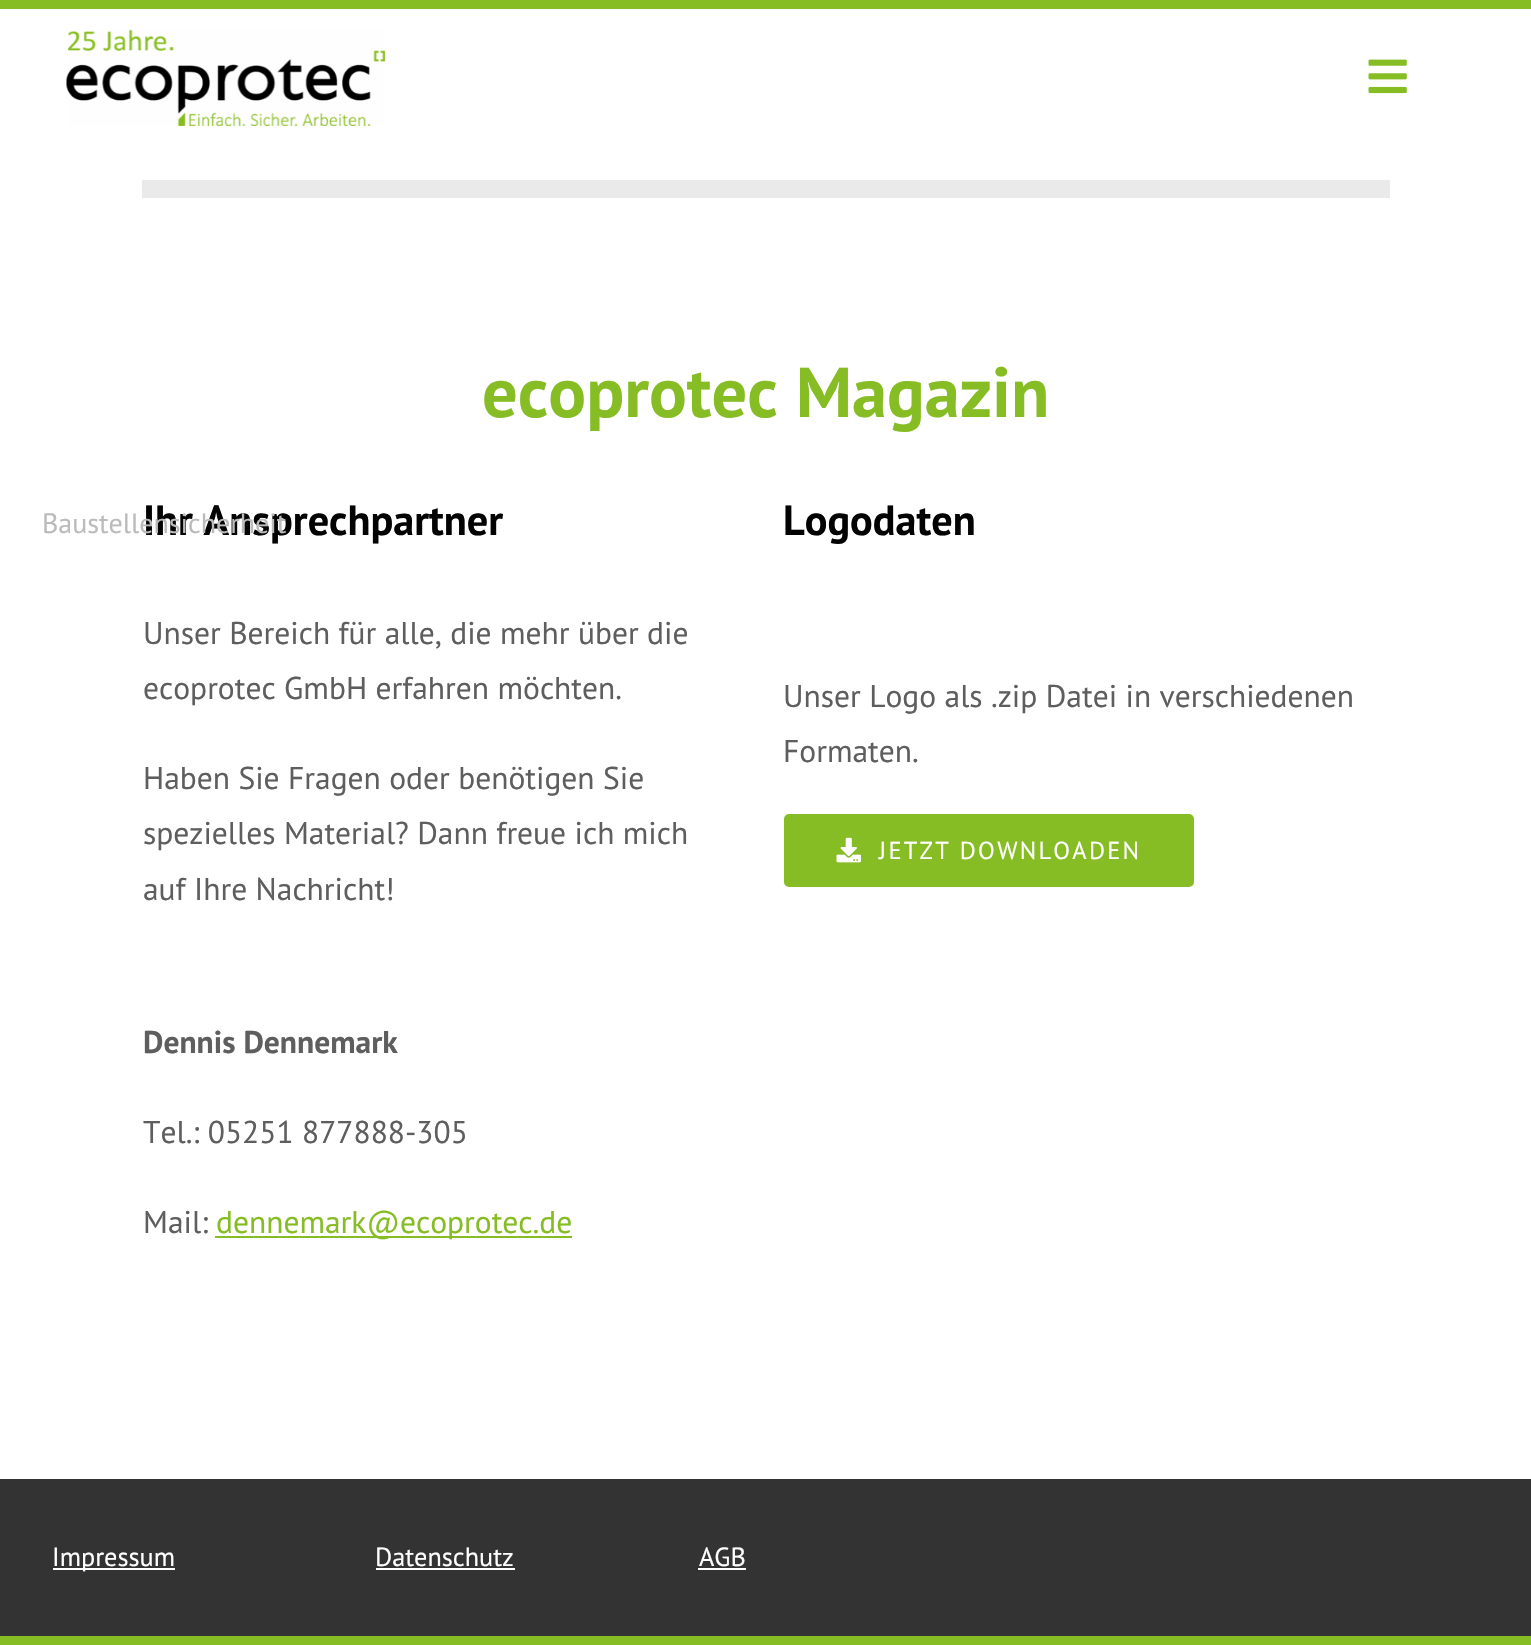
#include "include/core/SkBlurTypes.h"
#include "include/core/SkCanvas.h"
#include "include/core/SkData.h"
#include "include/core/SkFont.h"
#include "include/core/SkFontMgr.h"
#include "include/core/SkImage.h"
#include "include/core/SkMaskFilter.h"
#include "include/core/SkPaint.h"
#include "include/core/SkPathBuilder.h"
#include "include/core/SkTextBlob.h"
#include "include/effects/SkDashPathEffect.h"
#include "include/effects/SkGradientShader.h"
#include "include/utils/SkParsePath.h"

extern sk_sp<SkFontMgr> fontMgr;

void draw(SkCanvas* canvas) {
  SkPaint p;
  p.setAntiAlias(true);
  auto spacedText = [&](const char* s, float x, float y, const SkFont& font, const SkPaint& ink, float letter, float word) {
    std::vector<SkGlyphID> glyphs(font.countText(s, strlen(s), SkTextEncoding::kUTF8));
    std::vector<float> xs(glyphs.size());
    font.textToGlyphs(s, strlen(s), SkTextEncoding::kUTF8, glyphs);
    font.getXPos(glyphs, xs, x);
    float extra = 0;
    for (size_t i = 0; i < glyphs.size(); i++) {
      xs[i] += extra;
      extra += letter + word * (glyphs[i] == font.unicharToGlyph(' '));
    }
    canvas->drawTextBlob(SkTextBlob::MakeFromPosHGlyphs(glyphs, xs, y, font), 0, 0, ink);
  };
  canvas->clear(SK_ColorWHITE);
  p.setColor(SkColorSetRGB(235, 234, 234));
  canvas->drawRect(SkRect::MakeLTRB(142, 180, 1390, 198), p);
  p.setColor(SkColorSetRGB(134, 188, 36));
  canvas->drawRect(SkRect::MakeLTRB(215, 1236, 572, 1238), p);
  canvas->drawRoundRect(SkRect::MakeLTRB(785, 815, 1193, 886), 4, 4, p);
  p.setStyle(SkPaint::kStroke_Style);
  p.setStrokeWidth(2);
  canvas->drawRoundRect(SkRect::MakeLTRB(785, 815, 1193, 886), 4, 4, p);
  canvas->drawImageRect(SkImages::DeferredFromEncodedData(SkData::MakeFromFileName("images/1.png")), SkRect::MakeLTRB(836, 837, 861, 863), SkSamplingOptions());
  p.setStyle(SkPaint::kFill_Style);
  canvas->drawRect(SkRect::MakeLTRB(0, 0, 1531, 9), p);
  canvas->drawImageRect(SkImages::DeferredFromEncodedData(SkData::MakeFromFileName("images/2.png")), SkRect::MakeLTRB(66, 29, 385, 126), SkSamplingOptions());
  canvas->drawImageRect(SkImages::DeferredFromEncodedData(SkData::MakeFromFileName("images/3.png")), SkRect::MakeLTRB(1368, 59, 1407, 94), SkSamplingOptions());
  p.setColor(SkColorSetRGB(51, 51, 51));
  canvas->drawRect(SkRect::MakeLTRB(0, 1479, 1531, 1636), p);
  p.setColor(SkColorSetRGB(134, 188, 36));
  canvas->drawRect(SkRect::MakeLTRB(0, 1636, 1531, 1645), p);
  p.setColor(SK_ColorWHITE);
  canvas->drawRect(SkRect::MakeLTRB(53, 1568, 175, 1570), p);
  canvas->drawRect(SkRect::MakeLTRB(376, 1568, 515, 1570), p);
  canvas->drawRect(SkRect::MakeLTRB(698, 1568, 746, 1570), p);
  SkFont font1(fontMgr->matchFamilyStyle("PT Sans", SkFontStyle::Bold()), 70.5f);
  font1.setSubpixel(true);
  p.setColor(SkColorSetRGB(134, 188, 36));
  canvas->drawString("ecoprotec Magazin", 482, 417, font1, p);
  SkFont font2(fontMgr->matchFamilyStyle("PT Sans", SkFontStyle::Bold()), 42.25f);
  font2.setSubpixel(true);
  p.setColor(SkColorSetRGB(3, 3, 3));
  canvas->drawString("Ihr Ansprechpartner", 143, 535, font2, p);
  SkFont font3(fontMgr->matchFamilyStyle("PT Sans", SkFontStyle::Normal()), 31.5f);
  font3.setSubpixel(true);
  p.setColor(SkColorSetRGB(94, 94, 94));
  canvas->drawString("Unser Bereich für alle, die mehr über die", 143, 644, font3, p);
  canvas->drawString("ecoprotec GmbH erfahren möchten.", 143, 699, font3, p);
  canvas->drawString("Haben Sie Fragen oder benötigen Sie", 143, 789, font3, p);
  canvas->drawString("spezielles Material? Dann freue ich mich", 143, 844, font3, p);
  canvas->drawString("auf Ihre Nachricht!", 143, 900, font3, p);
  SkFont font4(fontMgr->matchFamilyStyle("PT Sans", SkFontStyle::Bold()), 31.5f);
  font4.setSubpixel(true);
  canvas->drawString("Dennis Dennemark", 143, 1053, font4, p);
  canvas->drawString("Tel.: 05251 877888-305", 143, 1143, font3, p);
  canvas->drawString("Mail:", 143, 1233, font3, p);
  p.setColor(SkColorSetRGB(134, 188, 36));
  canvas->drawString("dennemark@ecoprotec.de", 216, 1233, font3, p);
  p.setColor(SkColorSetRGB(3, 3, 3));
  canvas->drawString("Logodaten", 783, 535, font2, p);
  p.setColor(SkColorSetRGB(94, 94, 94));
  canvas->drawString("Unser Logo als .zip Datei in verschiedenen", 783, 707, font3, p);
  canvas->drawString("Formaten.", 783, 762, font3, p);
  SkFont font5(fontMgr->matchFamilyStyle("PT Sans", SkFontStyle::Normal()), 24.5f);
  font5.setSubpixel(true);
  p.setColor(SK_ColorWHITE);
  spacedText("JETZT DOWNLOADEN", 879, 859, font5, p, 2.25f, 0);
  SkFont font6(fontMgr->matchFamilyStyle("PT Sans", SkFontStyle::Normal()), 28);
  font6.setSubpixel(true);
  p.setColor(SkColorSetRGB(187, 187, 187));
  canvas->drawString("Baustellensicherheit", 42, 533, font6, p);
  SkFont font7(fontMgr->matchFamilyStyle("PT Sans", SkFontStyle::Normal()), 26.25f);
  font7.setSubpixel(true);
  p.setColor(SK_ColorWHITE);
  canvas->drawString("Impressum", 52, 1566, font7, p);
  canvas->drawString("Datenschutz", 375, 1566, font7, p);
  canvas->drawString("AGB", 699, 1566, font7, p);
}
